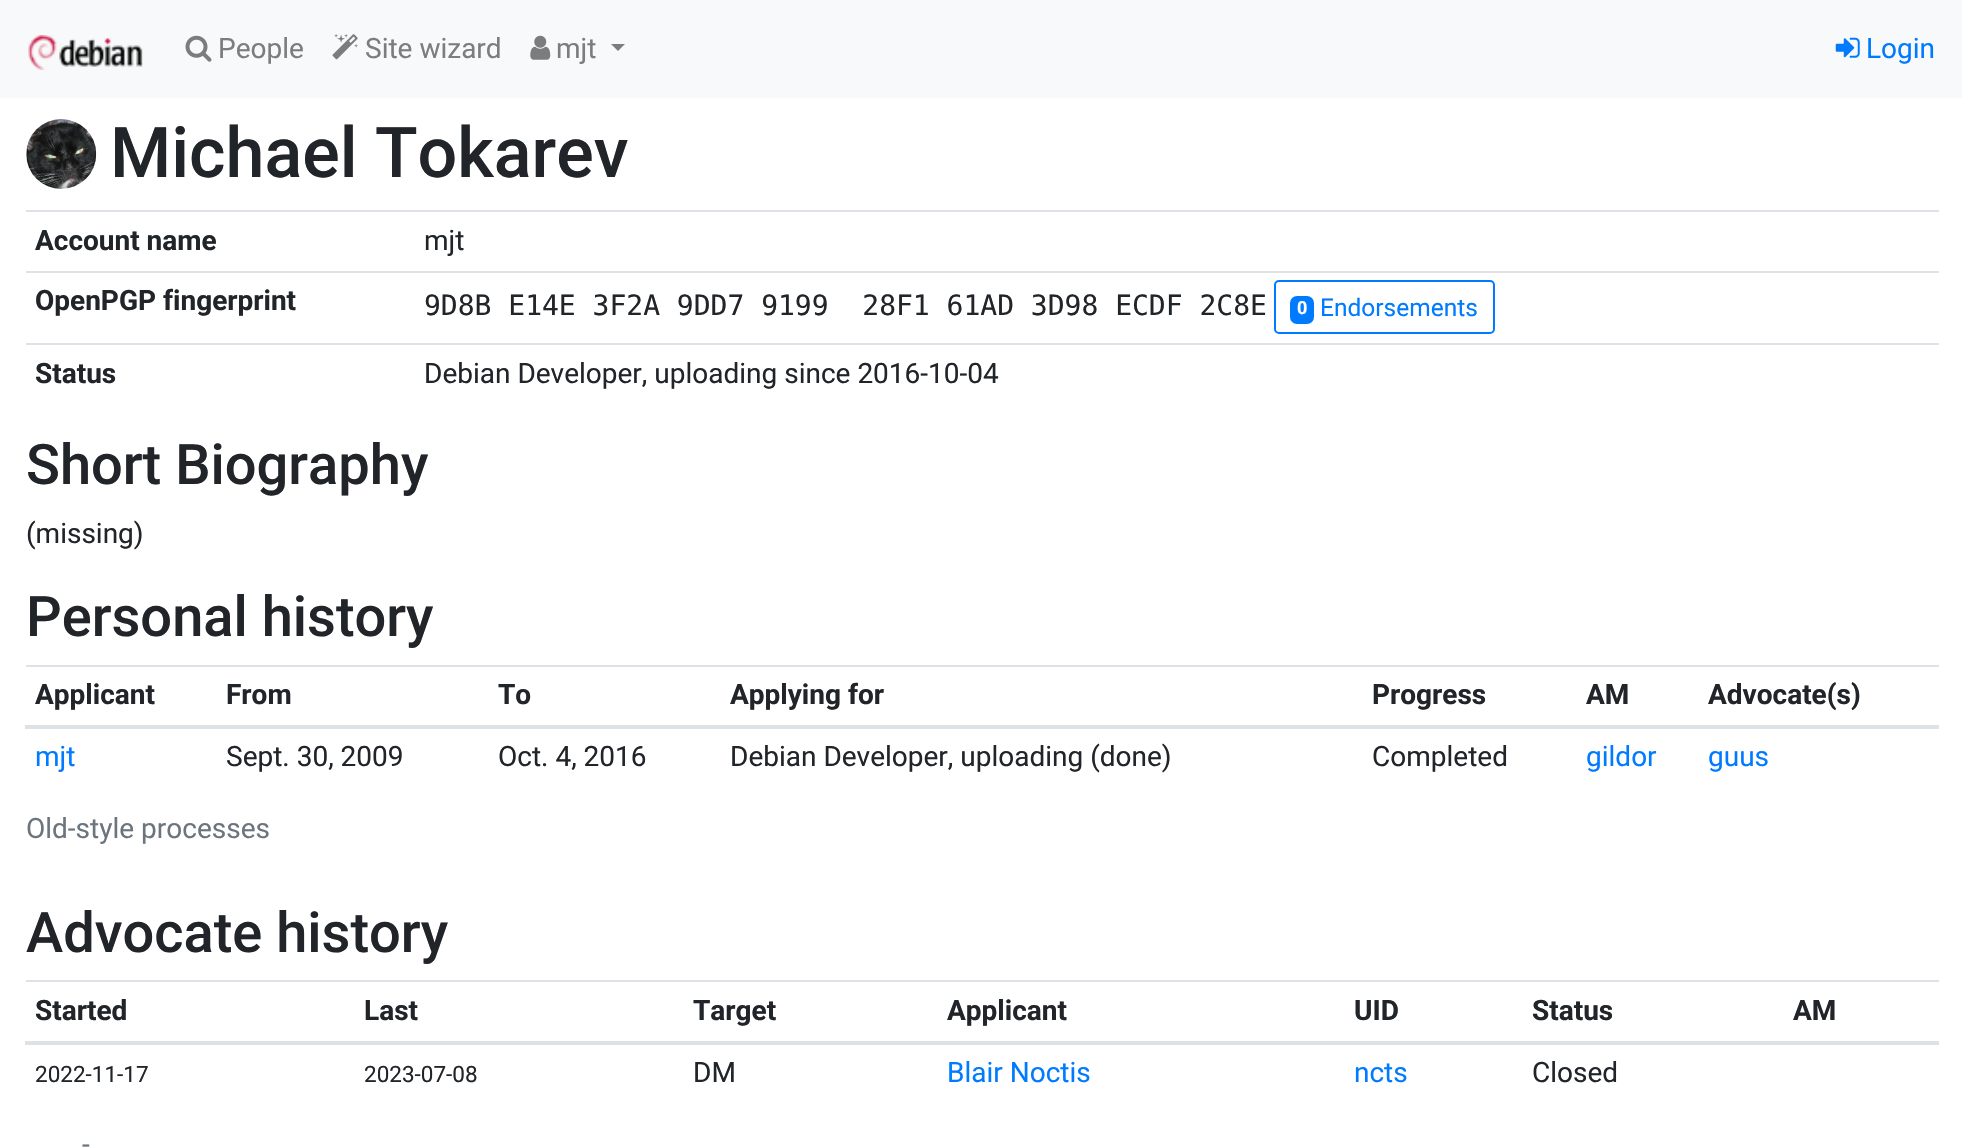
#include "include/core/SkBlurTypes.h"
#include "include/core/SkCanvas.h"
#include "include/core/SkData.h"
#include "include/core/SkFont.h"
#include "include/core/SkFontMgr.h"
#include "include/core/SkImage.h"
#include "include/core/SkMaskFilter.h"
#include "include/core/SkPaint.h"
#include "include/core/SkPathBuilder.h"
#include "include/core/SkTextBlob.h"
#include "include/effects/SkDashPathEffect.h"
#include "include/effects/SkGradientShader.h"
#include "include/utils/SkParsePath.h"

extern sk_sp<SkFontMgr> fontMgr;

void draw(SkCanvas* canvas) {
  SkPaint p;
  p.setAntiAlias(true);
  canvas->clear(SK_ColorWHITE);
  p.setColor(SkColorSetRGB(248, 249, 250));
  canvas->drawRect(SkRect::MakeLTRB(0, 0, 1962, 98), p);
  canvas->drawImageRect(SkImages::DeferredFromEncodedData(SkData::MakeFromFileName("images/1.png")), SkRect::MakeLTRB(28, 35, 143, 70), SkSamplingOptions());
  canvas->drawImageRect(SkImages::DeferredFromEncodedData(SkData::MakeFromFileName("images/2.png")), SkRect::MakeLTRB(185, 35, 212, 62), SkSamplingOptions());
  canvas->drawImageRect(SkImages::DeferredFromEncodedData(SkData::MakeFromFileName("images/3.png")), SkRect::MakeLTRB(332, 34, 358, 60), SkSamplingOptions());
  canvas->drawImageRect(SkImages::DeferredFromEncodedData(SkData::MakeFromFileName("images/4.png")), SkRect::MakeLTRB(530, 35, 551, 60), SkSamplingOptions());
  p.setColor(SkColorSetRGB(124, 125, 125));
  canvas->drawPath(SkPathBuilder().moveTo(611, 44).lineTo(625, 44).lineTo(618, 51).close().detach(), p);
  canvas->drawImageRect(SkImages::DeferredFromEncodedData(SkData::MakeFromFileName("images/5.png")), SkRect::MakeLTRB(1835, 37, 1860, 58), SkSamplingOptions());
  canvas->drawImageRect(SkImages::DeferredFromEncodedData(SkData::MakeFromFileName("images/6.png")), SkRect::MakeLTRB(26, 119, 97, 189), SkSamplingOptions());
  p.setColor(SkColorSetRGB(222, 226, 230));
  canvas->drawRect(SkRect::MakeLTRB(26, 210, 1939, 212), p);
  canvas->drawRect(SkRect::MakeLTRB(26, 271, 1939, 273), p);
  p.setStyle(SkPaint::kStroke_Style);
  p.setStrokeWidth(2);
  p.setColor(SkColorSetRGB(0, 123, 255));
  canvas->drawRoundRect(SkRect::MakeLTRB(1275, 281, 1494, 333), 4, 4, p);
  p.setStyle(SkPaint::kFill_Style);
  canvas->drawRoundRect(SkRect::MakeLTRB(1290, 296, 1314, 324), 7, 7, p);
  p.setColor(SkColorSetRGB(222, 226, 230));
  canvas->drawRect(SkRect::MakeLTRB(26, 343, 1939, 345), p);
  canvas->drawRect(SkRect::MakeLTRB(26, 665, 1939, 667), p);
  canvas->drawRect(SkRect::MakeLTRB(25, 725, 1939, 729), p);
  canvas->drawRect(SkRect::MakeLTRB(26, 980, 1939, 982), p);
  canvas->drawRect(SkRect::MakeLTRB(25, 1041, 1939, 1045), p);
  SkFont font1(fontMgr->matchFamilyStyle("Roboto", SkFontStyle::Normal()), 28);
  font1.setSubpixel(true);
  p.setColor(SkColorSetRGB(124, 125, 125));
  canvas->drawString("People", 218, 58, font1, p);
  canvas->drawString("Site wizard", 365, 58, font1, p);
  canvas->drawString("mjt", 556, 58, font1, p);
  p.setColor(SkColorSetRGB(0, 123, 255));
  canvas->drawString("Login", 1866, 58, font1, p);
  SkFont font2(fontMgr->matchFamilyStyle("Roboto", SkFontStyle(500, SkFontStyle::kNormal_Width, SkFontStyle::kUpright_Slant)), 70);
  font2.setSubpixel(true);
  p.setColor(SkColorSetRGB(33, 37, 41));
  canvas->drawString("Michael Tokarev", 110, 177, font2, p);
  SkFont font3(fontMgr->matchFamilyStyle("Roboto", SkFontStyle::Bold()), 28);
  font3.setSubpixel(true);
  canvas->drawString("Account name", 35, 250, font3, p);
  canvas->drawString("mjt", 424, 250, font1, p);
  canvas->drawString("OpenPGP fingerprint", 35, 310, font3, p);
  SkFont font4(fontMgr->matchFamilyStyle("DejaVu Sans Mono", SkFontStyle::Normal()), 28);
  font4.setSubpixel(true);
  canvas->drawString("9D8B E14E 3F2A 9DD7 9199  28F1 61AD 3D98 ECDF 2C8E", 424, 315, font4, p);
  SkFont font5(fontMgr->matchFamilyStyle("Roboto", SkFontStyle::Bold()), 18);
  font5.setSubpixel(true);
  p.setColor(SK_ColorWHITE);
  canvas->drawString("0", 1297, 314, font5, p);
  SkFont font6(fontMgr->matchFamilyStyle("Roboto", SkFontStyle::Normal()), 24.5f);
  font6.setSubpixel(true);
  p.setColor(SkColorSetRGB(0, 123, 255));
  canvas->drawString("Endorsements", 1320, 316, font6, p);
  p.setColor(SkColorSetRGB(33, 37, 41));
  canvas->drawString("Status", 35, 383, font3, p);
  canvas->drawString("Debian Developer, uploading since 2016-10-04", 424, 383, font1, p);
  SkFont font7(fontMgr->matchFamilyStyle("Roboto", SkFontStyle(500, SkFontStyle::kNormal_Width, SkFontStyle::kUpright_Slant)), 56);
  font7.setSubpixel(true);
  canvas->drawString("Short Biography", 26, 484, font7, p);
  canvas->drawString("(missing)", 26, 543, font1, p);
  canvas->drawString("Personal history", 26, 636, font7, p);
  canvas->drawString("Applicant", 35, 704, font3, p);
  canvas->drawString("From", 226, 704, font3, p);
  canvas->drawString("To", 498, 704, font3, p);
  canvas->drawString("Applying for", 730, 704, font3, p);
  canvas->drawString("Progress", 1372, 704, font3, p);
  canvas->drawString("AM", 1586, 704, font3, p);
  canvas->drawString("Advocate(s)", 1708, 704, font3, p);
  p.setColor(SkColorSetRGB(0, 123, 255));
  canvas->drawString("mjt", 35, 766, font1, p);
  p.setColor(SkColorSetRGB(33, 37, 41));
  canvas->drawString("Sept. 30, 2009", 226, 766, font1, p);
  canvas->drawString("Oct. 4, 2016", 498, 766, font1, p);
  canvas->drawString("Debian Developer, uploading (done)", 730, 766, font1, p);
  canvas->drawString("Completed", 1372, 766, font1, p);
  p.setColor(SkColorSetRGB(0, 123, 255));
  canvas->drawString("gildor", 1586, 766, font1, p);
  canvas->drawString("guus", 1708, 766, font1, p);
  p.setColor(SkColorSetRGB(108, 117, 125));
  canvas->drawString("Old-style processes", 26, 838, font1, p);
  p.setColor(SkColorSetRGB(33, 37, 41));
  canvas->drawString("Advocate history", 26, 952, font7, p);
  canvas->drawString("Started", 35, 1020, font3, p);
  canvas->drawString("Last", 364, 1020, font3, p);
  canvas->drawString("Target", 693, 1020, font3, p);
  canvas->drawString("Applicant", 947, 1020, font3, p);
  canvas->drawString("UID", 1354, 1020, font3, p);
  canvas->drawString("Status", 1532, 1020, font3, p);
  canvas->drawString("AM", 1793, 1020, font3, p);
  SkFont font8(fontMgr->matchFamilyStyle("Roboto", SkFontStyle::Normal()), 22.5f);
  font8.setSubpixel(true);
  canvas->drawString("2022-11-17", 35, 1082, font8, p);
  canvas->drawString("2023-07-08", 364, 1082, font8, p);
  canvas->drawString("DM", 693, 1082, font1, p);
  p.setColor(SkColorSetRGB(0, 123, 255));
  canvas->drawString("Blair Noctis", 947, 1082, font1, p);
  canvas->drawString("ncts", 1354, 1082, font1, p);
  p.setColor(SkColorSetRGB(33, 37, 41));
  canvas->drawString("Closed", 1532, 1082, font1, p);
  p.setColor(SkColorSetRGB(108, 117, 125));
  canvas->drawString("-", 82, 1154, font1, p);
}
